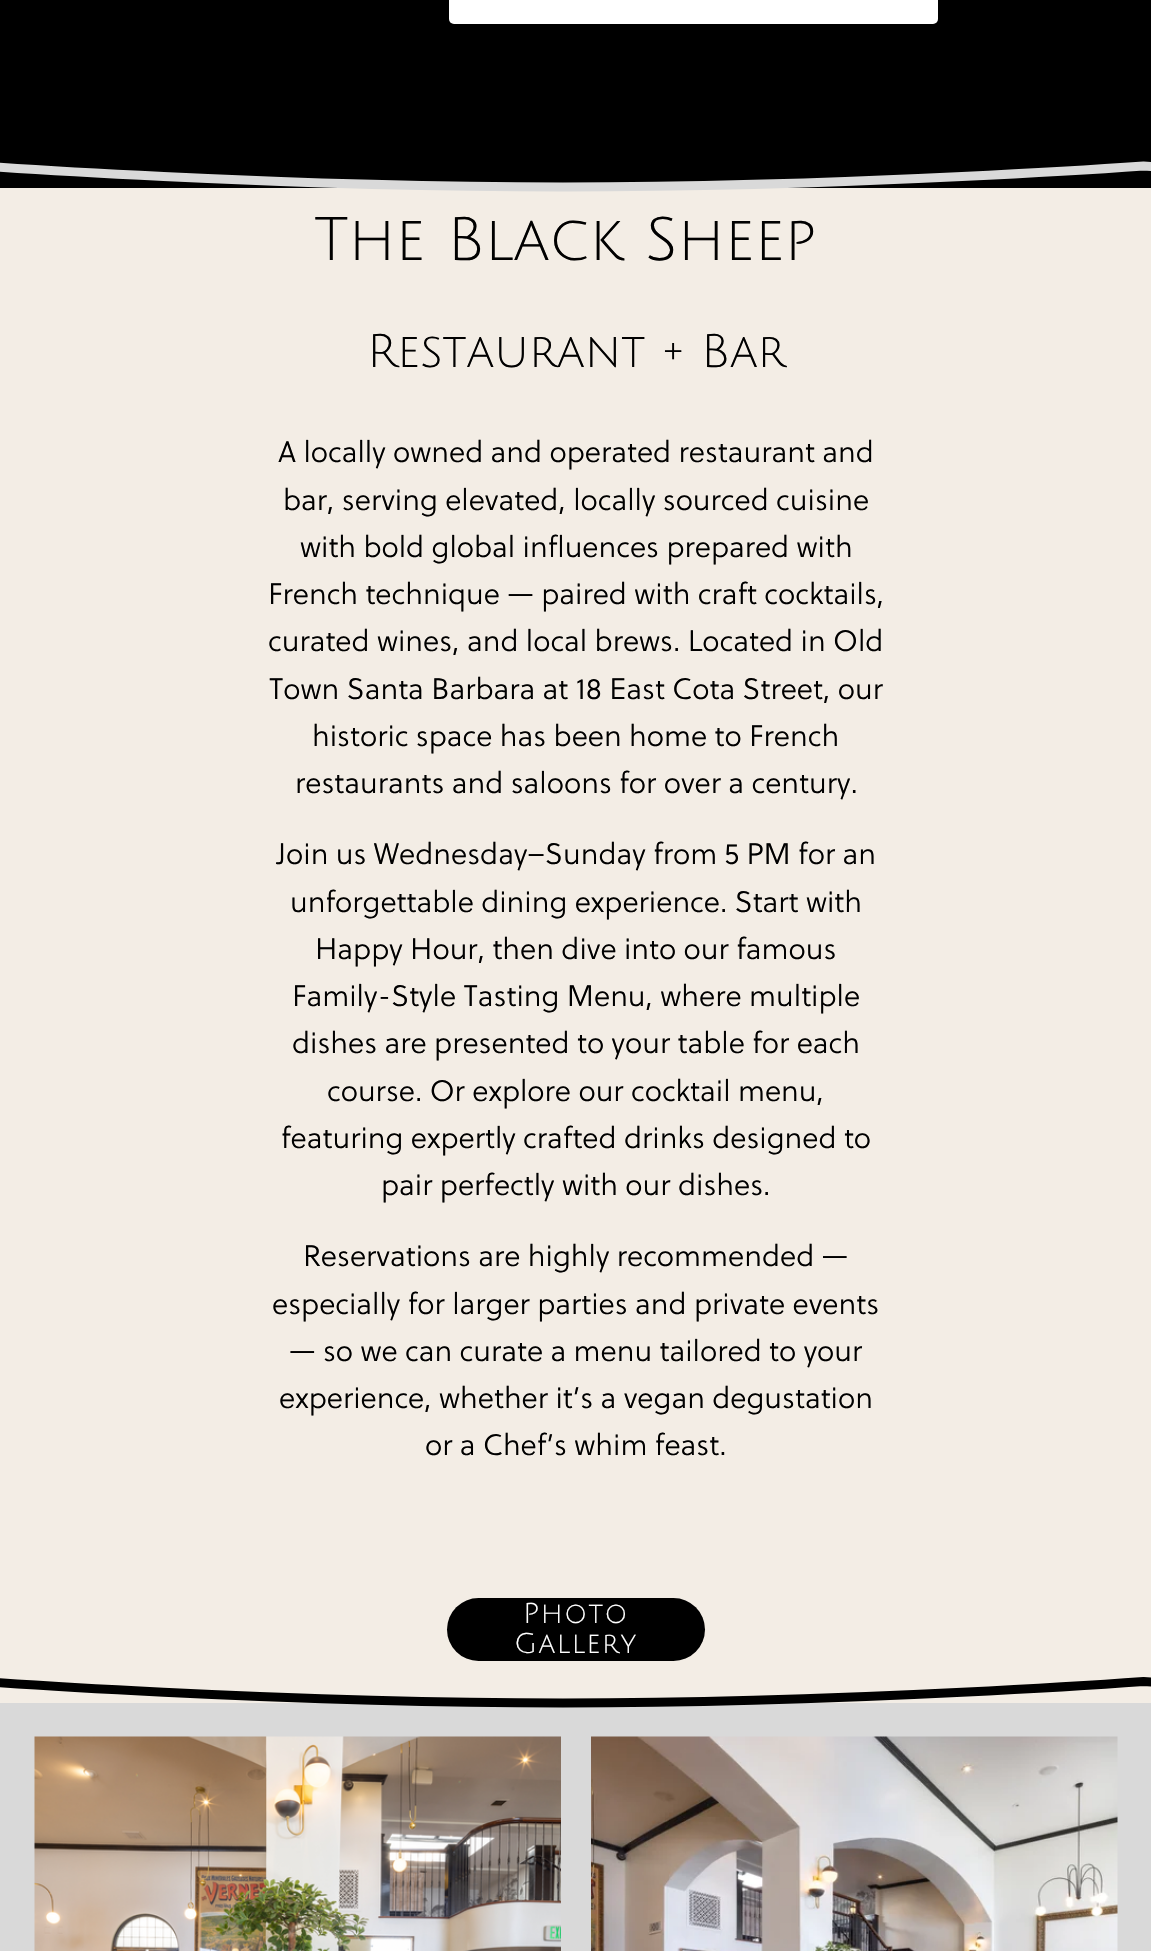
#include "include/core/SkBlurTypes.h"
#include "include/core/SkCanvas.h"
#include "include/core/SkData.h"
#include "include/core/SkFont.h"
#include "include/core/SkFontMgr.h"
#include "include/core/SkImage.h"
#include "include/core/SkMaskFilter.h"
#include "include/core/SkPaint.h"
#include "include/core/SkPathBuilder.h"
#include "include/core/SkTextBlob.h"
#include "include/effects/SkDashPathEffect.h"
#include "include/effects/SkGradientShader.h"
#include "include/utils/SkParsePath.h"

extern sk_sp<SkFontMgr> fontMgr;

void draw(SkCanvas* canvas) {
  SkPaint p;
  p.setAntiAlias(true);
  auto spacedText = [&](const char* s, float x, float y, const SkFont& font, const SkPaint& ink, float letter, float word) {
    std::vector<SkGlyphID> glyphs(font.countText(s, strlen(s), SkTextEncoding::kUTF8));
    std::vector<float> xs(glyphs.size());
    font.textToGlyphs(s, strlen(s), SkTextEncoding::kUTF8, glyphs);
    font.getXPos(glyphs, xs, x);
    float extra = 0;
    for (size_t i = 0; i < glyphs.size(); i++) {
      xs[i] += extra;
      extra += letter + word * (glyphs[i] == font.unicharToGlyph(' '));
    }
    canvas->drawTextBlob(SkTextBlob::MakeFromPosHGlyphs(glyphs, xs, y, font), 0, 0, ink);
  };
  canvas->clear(SkColorSetRGB(217, 217, 217));
  p.setColor(SK_ColorBLACK);
  canvas->drawRect(SkRect::MakeLTRB(0, 0, 1151, 188), p);
  p.setColor(SK_ColorWHITE);
  canvas->drawRoundRect(SkRect::MakeLTRB(449, -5, 938, 24), 5, 5, p);
  p.setColor(SkColorSetRGB(243, 237, 229));
  canvas->drawRect(SkRect::MakeLTRB(0, 188, 1151, 1703), p);
  p.setStyle(SkPaint::kStroke_Style);
  p.setStrokeWidth(9);
  p.setStrokeCap(SkPaint::kSquare_Cap);
  p.setColor(SkColorSetRGB(217, 217, 217));
  canvas->drawPath(SkPathBuilder().moveTo(-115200, -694).lineTo(-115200, 1068.5f).moveTo(-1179, 166).cubicTo(-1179, 166, -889, 187, -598.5f, 187).cubicTo(-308, 187, -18, 166, -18, 166).cubicTo(-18, 166, 272.5f, 187, 563, 187).cubicTo(853, 187, 1143.5f, 166, 1143.5f, 166).cubicTo(1143.5f, 166, 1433.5f, 187, 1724, 187).cubicTo(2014.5f, 187, 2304.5f, 166, 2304.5f, 166).detach(), p);
  p.setStyle(SkPaint::kFill_Style);
  p.setColor(SK_ColorBLACK);
  canvas->drawRoundRect(SkRect::MakeLTRB(447, 1598, 705, 1661), 31.5f, 31.5f, p);
  p.setStyle(SkPaint::kStroke_Style);
  canvas->drawPath(SkPathBuilder().moveTo(-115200, 934).lineTo(-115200, 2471.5f).moveTo(-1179, 1681.5f).cubicTo(-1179, 1681.5f, -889, 1703, -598.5f, 1703).cubicTo(-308, 1703, -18, 1681.5f, -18, 1681.5f).cubicTo(-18, 1681.5f, 272.5f, 1703, 563, 1703).cubicTo(853, 1703, 1143.5f, 1681.5f, 1143.5f, 1681.5f).cubicTo(1143.5f, 1681.5f, 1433.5f, 1703, 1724, 1703).cubicTo(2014.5f, 1703, 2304.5f, 1681.5f, 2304.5f, 1681.5f).detach(), p);
  canvas->drawImageRect(SkImages::DeferredFromEncodedData(SkData::MakeFromFileName("images/1.png")), SkRect::MakeLTRB(34, 1736, 561, 1951), SkSamplingOptions());
  canvas->drawImageRect(SkImages::DeferredFromEncodedData(SkData::MakeFromFileName("images/2.png")), SkRect::MakeLTRB(591, 1736, 1118, 1951), SkSamplingOptions());
  SkFont font1(fontMgr->matchFamilyStyle("Julius Sans One", SkFontStyle::Normal()), 60);
  font1.setSubpixel(true);
  p.setStyle(SkPaint::kFill_Style);
  canvas->drawString("The Black Sheep", 314, 260, font1, p);
  SkFont font2(fontMgr->matchFamilyStyle("Julius Sans One", SkFontStyle::Normal()), 46.1f);
  font2.setSubpixel(true);
  canvas->drawString("Restaurant + Bar", 367, 367, font2, p);
  SkFont font3(fontMgr->matchFamilyStyle("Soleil", SkFontStyle(300, SkFontStyle::kNormal_Width, SkFontStyle::kUpright_Slant)), 29.5f);
  font3.setSubpixel(true);
  canvas->drawString("A locally owned and operated restaurant and", 278, 462, font3, p);
  canvas->drawString("bar, serving elevated, locally sourced cuisine", 283, 510, font3, p);
  canvas->drawString("with bold global influences prepared with", 300, 557, font3, p);
  canvas->drawString("French technique — paired with craft cocktails,", 268, 604, font3, p);
  canvas->drawString("curated wines, and local brews. Located in Old", 268, 651, font3, p);
  canvas->drawString("Town Santa Barbara at 18 East Cota Street, our", 269, 699, font3, p);
  canvas->drawString("historic space has been home to French", 312, 746, font3, p);
  canvas->drawString("restaurants and saloons for over a century.", 295, 793, font3, p);
  canvas->drawString("Join us Wednesday–Sunday from 5 PM for an", 276, 864, font3, p);
  canvas->drawString("unforgettable dining experience. Start with", 290, 912, font3, p);
  canvas->drawString("Happy Hour, then dive into our famous", 315, 959, font3, p);
  canvas->drawString("Family-Style Tasting Menu, where multiple", 292, 1006, font3, p);
  canvas->drawString("dishes are presented to your table for each", 292, 1053, font3, p);
  canvas->drawString("course. Or explore our cocktail menu,", 327, 1101, font3, p);
  canvas->drawString("featuring expertly crafted drinks designed to", 281, 1148, font3, p);
  canvas->drawString("pair perfectly with our dishes.", 381, 1195, font3, p);
  canvas->drawString("Reservations are highly recommended —", 303, 1266, font3, p);
  canvas->drawString("especially for larger parties and private events", 272, 1314, font3, p);
  canvas->drawString("— so we can curate a menu tailored to your", 289, 1361, font3, p);
  canvas->drawString("experience, whether it’s a vegan degustation", 279, 1408, font3, p);
  canvas->drawString("or a Chef’s whim feast.", 425, 1455, font3, p);
  SkFont font4(fontMgr->matchFamilyStyle("Julius Sans One", SkFontStyle::Normal()), 28);
  font4.setSubpixel(true);
  p.setColor(SK_ColorWHITE);
  spacedText("Photo", 523, 1623, font4, p, 1.5f, 0);
  spacedText("Gallery", 514, 1653, font4, p, 1.5f, 0);
}
